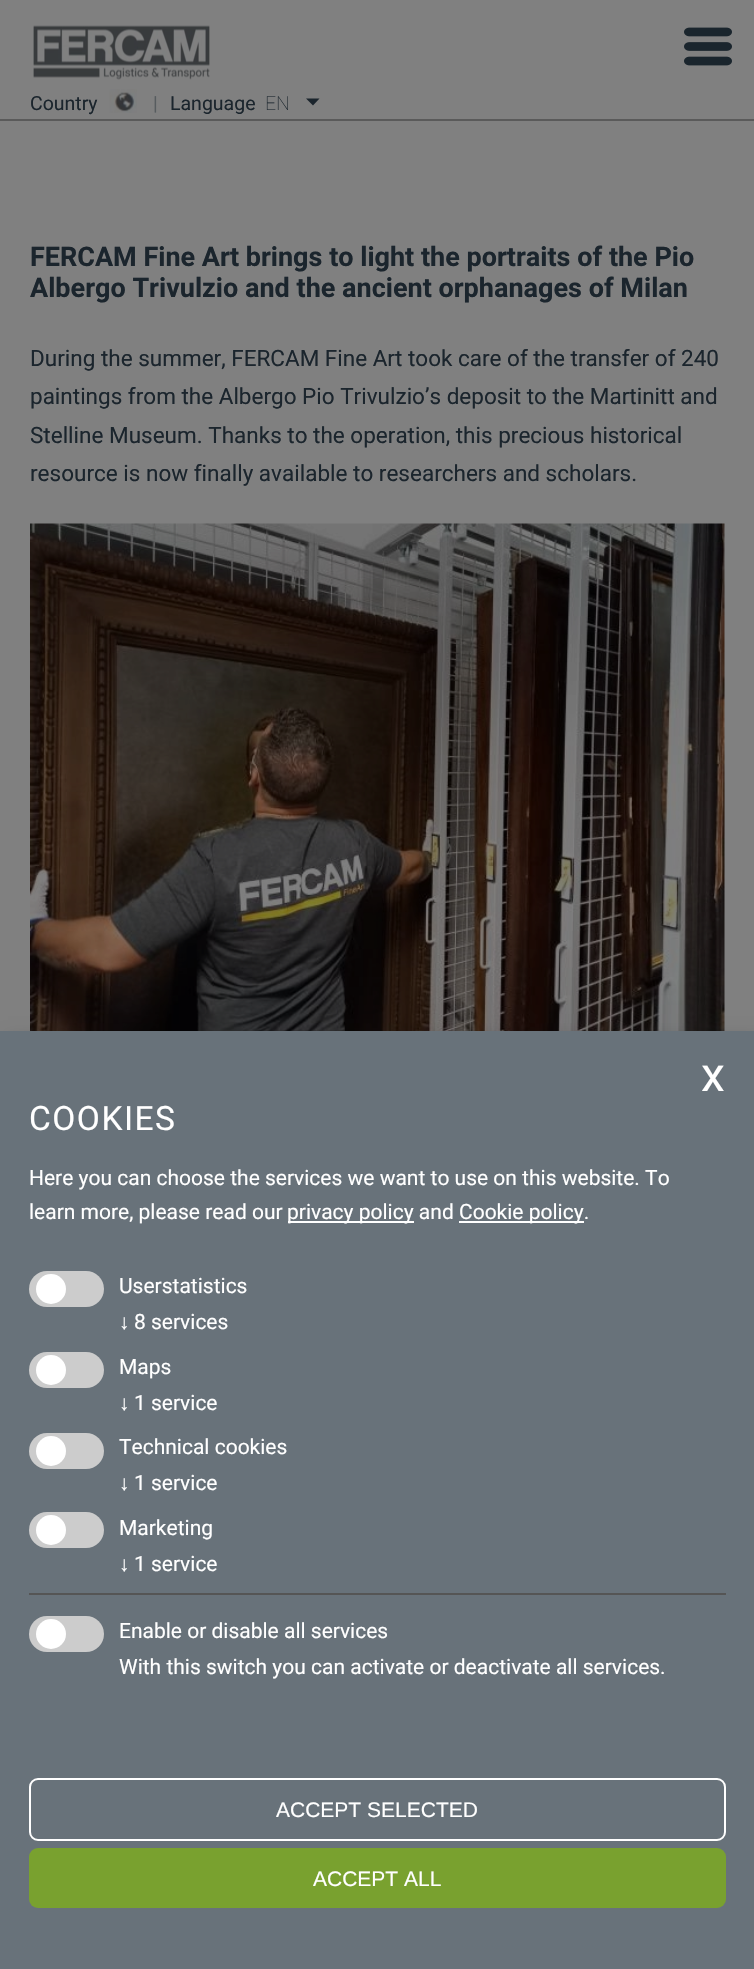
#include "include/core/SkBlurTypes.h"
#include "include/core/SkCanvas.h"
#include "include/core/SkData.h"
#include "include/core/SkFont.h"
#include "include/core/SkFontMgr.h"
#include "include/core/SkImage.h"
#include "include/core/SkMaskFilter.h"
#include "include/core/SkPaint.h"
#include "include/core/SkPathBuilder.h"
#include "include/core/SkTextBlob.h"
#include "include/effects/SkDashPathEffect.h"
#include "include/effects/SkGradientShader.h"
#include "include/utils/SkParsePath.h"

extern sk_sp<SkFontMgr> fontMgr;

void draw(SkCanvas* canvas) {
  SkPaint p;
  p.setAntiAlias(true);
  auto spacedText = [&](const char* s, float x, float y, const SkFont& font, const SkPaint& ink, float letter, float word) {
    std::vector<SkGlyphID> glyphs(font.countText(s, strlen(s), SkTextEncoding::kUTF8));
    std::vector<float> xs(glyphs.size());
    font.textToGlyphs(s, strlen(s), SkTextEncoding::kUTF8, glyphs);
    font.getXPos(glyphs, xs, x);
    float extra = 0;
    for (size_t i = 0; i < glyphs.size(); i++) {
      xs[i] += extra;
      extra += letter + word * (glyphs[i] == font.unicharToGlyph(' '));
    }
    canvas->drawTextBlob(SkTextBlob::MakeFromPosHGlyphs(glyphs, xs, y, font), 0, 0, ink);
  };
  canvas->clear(SkColorSetRGB(128, 128, 128));
  p.setColor(SkColorSetRGB(90, 90, 90));
  canvas->drawRect(SkRect::MakeLTRB(0, 119, 754, 121), p);
  canvas->drawImageRect(SkImages::DeferredFromEncodedData(SkData::MakeFromFileName("images/1.png")), SkRect::MakeLTRB(684, 27, 732, 66), SkSamplingOptions());
  canvas->drawImageRect(SkImages::DeferredFromEncodedData(SkData::MakeFromFileName("images/2.png")), SkRect::MakeLTRB(33, 25, 210, 80), SkSamplingOptions());
  canvas->drawImageRect(SkImages::DeferredFromEncodedData(SkData::MakeFromFileName("images/3.png")), SkRect::MakeLTRB(109, 89, 137, 113), SkSamplingOptions());
  p.setColor(SkColorSetRGB(27, 37, 45));
  canvas->drawPath(SkPathBuilder().moveTo(306, 98.5f).lineTo(319.5f, 98.5f).lineTo(313, 105.5f).close().detach(), p);
  canvas->drawImageRect(SkImages::DeferredFromEncodedData(SkData::MakeFromFileName("images/4.png")), SkRect::MakeLTRB(30, 523, 725, 1031), SkSamplingOptions());
  p.setColor(SkColorSetARGB(48, 0, 0, 0));
  p.setMaskFilter(SkMaskFilter::MakeBlur(kNormal_SkBlurStyle, 7.5f));
  canvas->drawRect(SkRect::MakeLTRB(8, 1038, 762, 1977), p);
  p.setMaskFilter(nullptr);
  p.setColor(SkColorSetRGB(104, 114, 122));
  canvas->drawRect(SkRect::MakeLTRB(0, 1031, 754, 1969), p);
  p.setStyle(SkPaint::kStroke_Style);
  p.setStrokeWidth(2);
  p.setColor(SK_ColorWHITE);
  canvas->drawRoundRect(SkRect::MakeLTRB(30, 1779, 725, 1840), 8, 8, p);
  p.setStyle(SkPaint::kFill_Style);
  p.setColor(SkColorSetRGB(121, 161, 47));
  canvas->drawRoundRect(SkRect::MakeLTRB(29, 1848, 726, 1908), 9, 9, p);
  p.setColor(SK_ColorWHITE);
  canvas->drawRect(SkRect::MakeLTRB(288, 1221, 414, 1223), p);
  canvas->drawRect(SkRect::MakeLTRB(459, 1221, 584, 1223), p);
  p.setColor(SkColorSetRGB(204, 204, 204));
  canvas->drawRoundRect(SkRect::MakeLTRB(29, 1271, 104, 1307), 18, 18, p);
  p.setColor(SK_ColorWHITE);
  canvas->drawCircle(51, 1289, 15, p);
  p.setColor(SkColorSetRGB(204, 204, 204));
  canvas->drawRoundRect(SkRect::MakeLTRB(29, 1352, 104, 1388), 18, 18, p);
  p.setColor(SK_ColorWHITE);
  canvas->drawCircle(51, 1370, 15, p);
  p.setColor(SkColorSetRGB(204, 204, 204));
  canvas->drawRoundRect(SkRect::MakeLTRB(29, 1433, 104, 1469), 18, 18, p);
  p.setColor(SK_ColorWHITE);
  canvas->drawCircle(51, 1451, 15, p);
  p.setColor(SkColorSetRGB(204, 204, 204));
  canvas->drawRoundRect(SkRect::MakeLTRB(29, 1512, 104, 1548), 18, 18, p);
  p.setColor(SK_ColorWHITE);
  canvas->drawCircle(51, 1530, 15, p);
  p.setColor(SkColorSetRGB(85, 85, 85));
  canvas->drawRect(SkRect::MakeLTRB(29, 1593, 726, 1595), p);
  p.setColor(SkColorSetRGB(204, 204, 204));
  canvas->drawRoundRect(SkRect::MakeLTRB(29, 1616, 104, 1652), 18, 18, p);
  p.setColor(SK_ColorWHITE);
  canvas->drawCircle(51, 1634, 15, p);
  SkFont font1(fontMgr->matchFamilyStyle("Roboto", SkFontStyle::Normal()), 19.5f);
  font1.setSubpixel(true);
  p.setColor(SkColorSetRGB(27, 37, 45));
  canvas->drawString("Country", 30, 110, font1, p);
  p.setColor(SkColorSetRGB(87, 92, 95));
  canvas->drawString("|", 153, 110, font1, p);
  p.setColor(SkColorSetRGB(27, 37, 45));
  canvas->drawString("Language", 170, 110, font1, p);
  SkFont font2(fontMgr->matchFamilyStyle("Roboto", SkFontStyle(100, SkFontStyle::kNormal_Width, SkFontStyle::kUpright_Slant)), 19.5f);
  font2.setSubpixel(true);
  canvas->drawString("EN", 265, 110, font2, p);
  SkFont font3(fontMgr->matchFamilyStyle("Roboto", SkFontStyle::Bold()), 27);
  font3.setSubpixel(true);
  canvas->drawString("FERCAM Fine Art brings to light the portraits of the Pio", 30, 266, font3, p);
  canvas->drawString("Albergo Trivulzio and the ancient orphanages of Milan", 30, 297, font3, p);
  SkFont font4(fontMgr->matchFamilyStyle("Roboto", SkFontStyle::Normal()), 22.5f);
  font4.setSubpixel(true);
  canvas->drawString("During the summer, FERCAM Fine Art took care of the transfer of 240", 30, 366, font4, p);
  canvas->drawString("paintings from the Albergo Pio Trivulzio’s deposit to the Martinitt and", 30, 404, font4, p);
  canvas->drawString("Stelline Museum. Thanks to the operation, this precious historical", 30, 443, font4, p);
  canvas->drawString("resource is now finally available to researchers and scholars.", 30, 481, font4, p);
  SkFont font5(fontMgr->matchFamilyStyle("Roboto", SkFontStyle::Normal()), 48);
  font5.setSubpixel(true);
  p.setColor(SK_ColorWHITE);
  canvas->drawString("x", 701, 1091, font5, p);
  SkFont font6(fontMgr->matchFamilyStyle("Liberation Sans", SkFontStyle::Normal()), 21);
  font6.setSubpixel(true);
  canvas->drawString("ACCEPT SELECTED", 276, 1817, font6, p);
  canvas->drawString("ACCEPT ALL", 313, 1886, font6, p);
  SkFont font7(fontMgr->matchFamilyStyle("Roboto", SkFontStyle::Normal()), 33.5f);
  font7.setSubpixel(true);
  spacedText("COOKIES", 29, 1130, font7, p, 1.5f, 0);
  SkFont font8(fontMgr->matchFamilyStyle("Roboto", SkFontStyle::Normal()), 21);
  font8.setSubpixel(true);
  canvas->drawString("Here you can choose the services we want to use on this website. To", 29, 1185, font8, p);
  canvas->drawString("learn more, please read our", 29, 1219, font8, p);
  canvas->drawString("privacy policy and", 287, 1219, font8, p);
  canvas->drawString("Cookie policy.", 459, 1219, font8, p);
  canvas->drawString("Userstatistics", 119, 1293, font8, p);
  SkFont font9(fontMgr->matchFamilyStyle("Liberation Serif", SkFontStyle::Normal()), 21);
  font9.setSubpixel(true);
  canvas->drawString("↓", 119, 1329, font9, p);
  canvas->drawString("8 services", 134, 1329, font8, p);
  canvas->drawString("Maps", 119, 1374, font8, p);
  canvas->drawString("↓", 119, 1410, font9, p);
  canvas->drawString("1 service", 134, 1410, font8, p);
  canvas->drawString("Technical cookies", 119, 1454, font8, p);
  canvas->drawString("↓", 119, 1490, font9, p);
  canvas->drawString("1 service", 134, 1490, font8, p);
  canvas->drawString("Marketing", 119, 1535, font8, p);
  canvas->drawString("↓", 119, 1571, font9, p);
  canvas->drawString("1 service", 134, 1571, font8, p);
  canvas->drawString("Enable or disable all services", 119, 1638, font8, p);
  canvas->drawString("With this switch you can activate or deactivate all services.", 119, 1674, font8, p);
}
